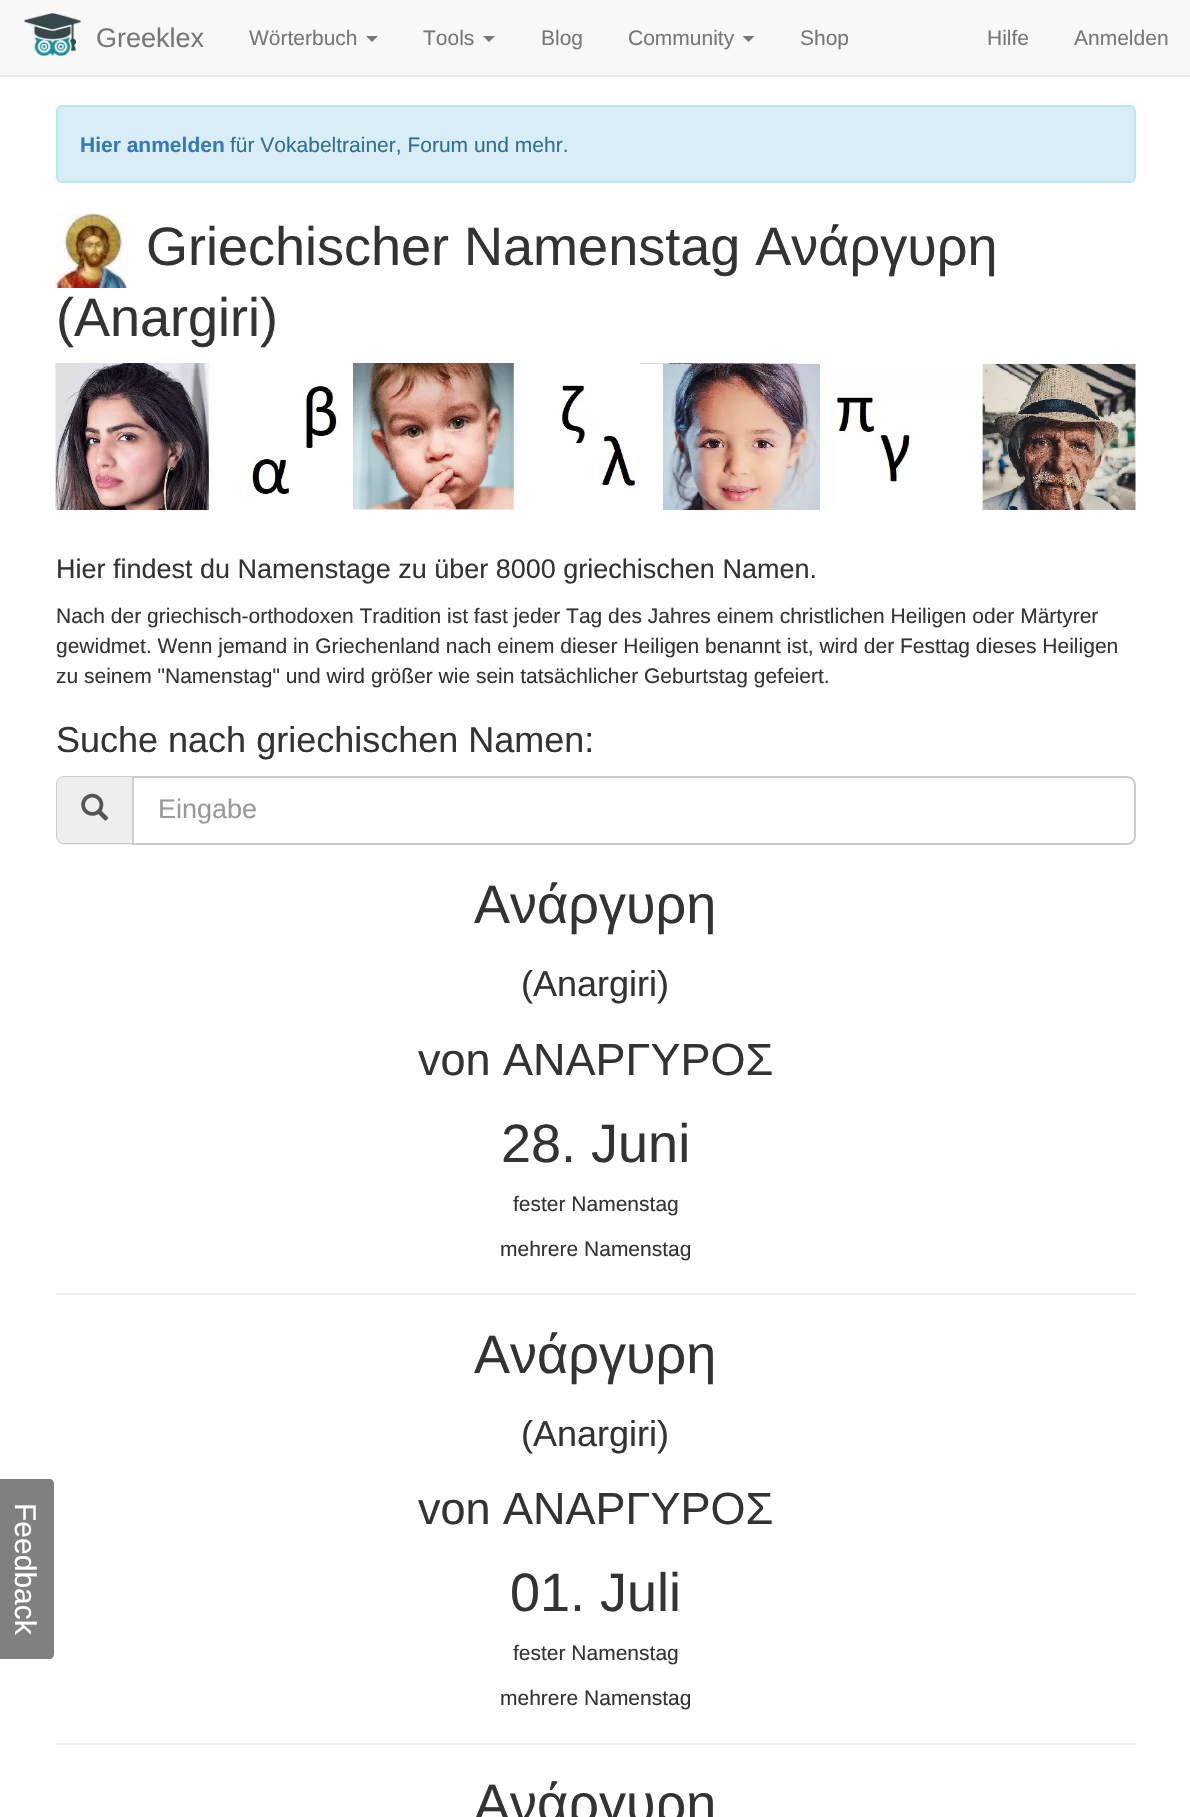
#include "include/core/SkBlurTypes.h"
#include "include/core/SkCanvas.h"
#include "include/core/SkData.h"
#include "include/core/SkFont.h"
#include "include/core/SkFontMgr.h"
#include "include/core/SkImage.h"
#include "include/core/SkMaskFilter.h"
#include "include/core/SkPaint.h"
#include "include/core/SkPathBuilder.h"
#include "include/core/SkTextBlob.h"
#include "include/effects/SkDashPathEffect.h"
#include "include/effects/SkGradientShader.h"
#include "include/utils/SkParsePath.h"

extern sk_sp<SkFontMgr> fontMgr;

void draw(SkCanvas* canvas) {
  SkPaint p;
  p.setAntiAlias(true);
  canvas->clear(SK_ColorWHITE);
  p.setColor(SkColorSetRGB(128, 128, 128));
  canvas->drawPath(SkPathBuilder().moveTo(54, 1484).lineTo(54, 1654).cubicTo(54, 1657, 52, 1659, 50, 1659).lineTo(-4, 1659).cubicTo(-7, 1659, -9, 1657, -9, 1654).lineTo(-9, 1484).cubicTo(-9, 1481, -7, 1479, -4, 1479).lineTo(50, 1479).cubicTo(52, 1479, 54, 1481, 54, 1484).close().detach(), p);
  p.setColor(SkColorSetRGB(248, 248, 248));
  canvas->drawRect(SkRect::MakeLTRB(0, 0, 1190, 75), p);
  p.setColor(SkColorSetRGB(231, 231, 231));
  canvas->drawRect(SkRect::MakeLTRB(0, 75, 1190, 77), p);
  canvas->drawImageRect(SkImages::DeferredFromEncodedData(SkData::MakeFromFileName("images/1.png")), SkRect::MakeLTRB(24, 13, 81, 57), SkSamplingOptions());
  p.setColor(SkColorSetRGB(119, 119, 119));
  canvas->drawPath(SkPathBuilder().moveTo(366, 36).lineTo(378, 36).lineTo(372, 42).close().detach(), p);
  canvas->drawPath(SkPathBuilder().moveTo(483, 36).lineTo(495, 36).lineTo(489, 42).close().detach(), p);
  canvas->drawPath(SkPathBuilder().moveTo(742.5f, 36).lineTo(754.5f, 36).lineTo(748.5f, 42).close().detach(), p);
  p.setColor(SkColorSetRGB(217, 237, 247));
  canvas->drawRoundRect(SkRect::MakeLTRB(57, 106, 1135, 182), 5, 5, p);
  p.setStyle(SkPaint::kStroke_Style);
  p.setStrokeWidth(2);
  p.setColor(SkColorSetRGB(188, 232, 241));
  canvas->drawRoundRect(SkRect::MakeLTRB(57, 106, 1135, 182), 5, 5, p);
  canvas->drawImageRect(SkImages::DeferredFromEncodedData(SkData::MakeFromFileName("images/2.png")), SkRect::MakeLTRB(55, 213, 128, 288), SkSamplingOptions());
  canvas->drawImageRect(SkImages::DeferredFromEncodedData(SkData::MakeFromFileName("images/3.png")), SkRect::MakeLTRB(55, 363, 1136, 510), SkSamplingOptions());
  p.setStyle(SkPaint::kFill_Style);
  p.setColor(SkColorSetRGB(238, 238, 238));
  canvas->drawPath(SkPathBuilder().moveTo(65, 776).lineTo(132, 776).lineTo(132, 845).lineTo(65, 845).cubicTo(60, 845, 56, 841, 56, 836).lineTo(56, 785).cubicTo(56, 780, 60, 776, 65, 776).close().detach(), p);
  p.setColor(SkColorSetRGB(204, 204, 204));
  canvas->drawPath(SkPathBuilder(SkPathFillType::kEvenOdd).moveTo(64, 776).lineTo(132, 776).lineTo(132, 844).lineTo(64, 844).cubicTo(60, 844, 56, 840, 56, 836).lineTo(56, 784).cubicTo(56, 780, 60, 776, 64, 776).close().moveTo(64, 777).lineTo(132, 777).lineTo(132, 843).lineTo(64, 843).cubicTo(60, 843, 57, 840, 57, 836).lineTo(57, 784).cubicTo(57, 780, 60, 777, 64, 777).close().detach(), p);
  canvas->drawImageRect(SkImages::DeferredFromEncodedData(SkData::MakeFromFileName("images/4.png")), SkRect::MakeLTRB(81, 793, 109, 821), SkSamplingOptions());
  p.setColor(SkColorSetRGB(236, 236, 236));
  canvas->drawPath(SkPathBuilder().moveTo(134, 778).lineTo(1126, 778).cubicTo(1131, 778, 1134, 782, 1134, 786).cubicTo(1134, 781, 1131, 777, 1126, 777).lineTo(134, 777).close().detach(), p);
  p.setStyle(SkPaint::kStroke_Style);
  p.setColor(SkColorSetRGB(204, 204, 204));
  canvas->drawPath(SkPathBuilder().moveTo(133, 777).lineTo(1127, 777).cubicTo(1131.5f, 777, 1135, 780.5f, 1135, 785).lineTo(1135, 836).cubicTo(1135, 840.5f, 1131.5f, 844, 1127, 844).lineTo(133, 844).close().detach(), p);
  p.setStyle(SkPaint::kFill_Style);
  p.setColor(SkColorSetRGB(238, 238, 238));
  canvas->drawRect(SkRect::MakeLTRB(56, 1293, 1136, 1295), p);
  canvas->drawRect(SkRect::MakeLTRB(56, 1743, 1136, 1745), p);
  SkFont font1(fontMgr->matchFamilyStyle("Liberation Sans", SkFontStyle::Normal()), 30);
  font1.setSubpixel(true);
  p.setColor(SK_ColorWHITE);
  canvas->save();
  canvas->rotate(90, 15, 1503);
  canvas->drawString("Feedback", 15, 1503, font1, p);
  canvas->restore();
  SkFont font2(fontMgr->matchFamilyStyle("Liberation Sans", SkFontStyle::Normal()), 27);
  font2.setSubpixel(true);
  p.setColor(SkColorSetRGB(119, 119, 119));
  canvas->drawString("Greeklex", 96, 47, font2, p);
  SkFont font3(fontMgr->matchFamilyStyle("Liberation Sans", SkFontStyle::Normal()), 21);
  font3.setSubpixel(true);
  canvas->drawString("Wörterbuch", 249, 45, font3, p);
  canvas->drawString("Tools", 423, 45, font3, p);
  canvas->drawString("Blog", 541, 45, font3, p);
  canvas->drawString("Community", 628, 45, font3, p);
  canvas->drawString("Shop", 800, 45, font3, p);
  canvas->drawString("Hilfe", 987, 45, font3, p);
  canvas->drawString("Anmelden", 1074, 45, font3, p);
  SkFont font4(fontMgr->matchFamilyStyle("Liberation Sans", SkFontStyle::Bold()), 21);
  font4.setSubpixel(true);
  p.setColor(SkColorSetRGB(51, 122, 183));
  canvas->drawString("Hier anmelden", 80, 152, font4, p);
  p.setColor(SkColorSetRGB(49, 112, 143));
  canvas->drawString("für Vokabeltrainer, Forum und mehr.", 230, 152, font3, p);
  SkFont font5(fontMgr->matchFamilyStyle("Liberation Sans", SkFontStyle::Normal()), 54);
  font5.setSubpixel(true);
  p.setColor(SkColorSetRGB(51, 51, 51));
  canvas->drawString("Griechischer Namenstag Ανάργυρη", 146, 265, font5, p);
  canvas->drawString("(Anargiri)", 56, 336, font5, p);
  canvas->drawString("Hier findest du Namenstage zu über 8000 griechischen Namen.", 56, 578, font2, p);
  canvas->drawString("Nach der griechisch-orthodoxen Tradition ist fast jeder Tag des Jahres einem christlichen Heiligen oder Märtyrer", 56, 623, font3, p);
  canvas->drawString("gewidmet. Wenn jemand in Griechenland nach einem dieser Heiligen benannt ist, wird der Festtag dieses Heiligen", 56, 653, font3, p);
  canvas->drawString("zu seinem \"Namenstag\" und wird größer wie sein tatsächlicher Geburtstag gefeiert.", 56, 683, font3, p);
  SkFont font6(fontMgr->matchFamilyStyle("Liberation Sans", SkFontStyle::Normal()), 36);
  font6.setSubpixel(true);
  canvas->drawString("Suche nach griechischen Namen:", 56, 752, font6, p);
  p.setColor(SkColorSetRGB(153, 153, 153));
  canvas->drawString("Eingabe", 158, 818, font2, p);
  p.setColor(SkColorSetRGB(51, 51, 51));
  canvas->drawString("Ανάργυρη", 474, 923, font5, p);
  canvas->drawString("(Anargiri)", 521, 996, font6, p);
  SkFont font7(fontMgr->matchFamilyStyle("Liberation Sans", SkFontStyle::Normal()), 45);
  font7.setSubpixel(true);
  canvas->drawString("von ΑΝΑΡΓΥΡΟΣ", 418, 1075, font7, p);
  canvas->drawString("28. Juni", 501, 1162, font5, p);
  canvas->drawString("fester Namenstag", 513, 1211, font3, p);
  canvas->drawString("mehrere Namenstag", 500, 1256, font3, p);
  canvas->drawString("Ανάργυρη", 474, 1373, font5, p);
  canvas->drawString("(Anargiri)", 521, 1446, font6, p);
  canvas->drawString("von ΑΝΑΡΓΥΡΟΣ", 418, 1524, font7, p);
  canvas->drawString("01. Juli", 510, 1611, font5, p);
  canvas->drawString("fester Namenstag", 513, 1660, font3, p);
  canvas->drawString("mehrere Namenstag", 500, 1705, font3, p);
  canvas->drawString("Ανάργυρη", 474, 1822, font5, p);
}
